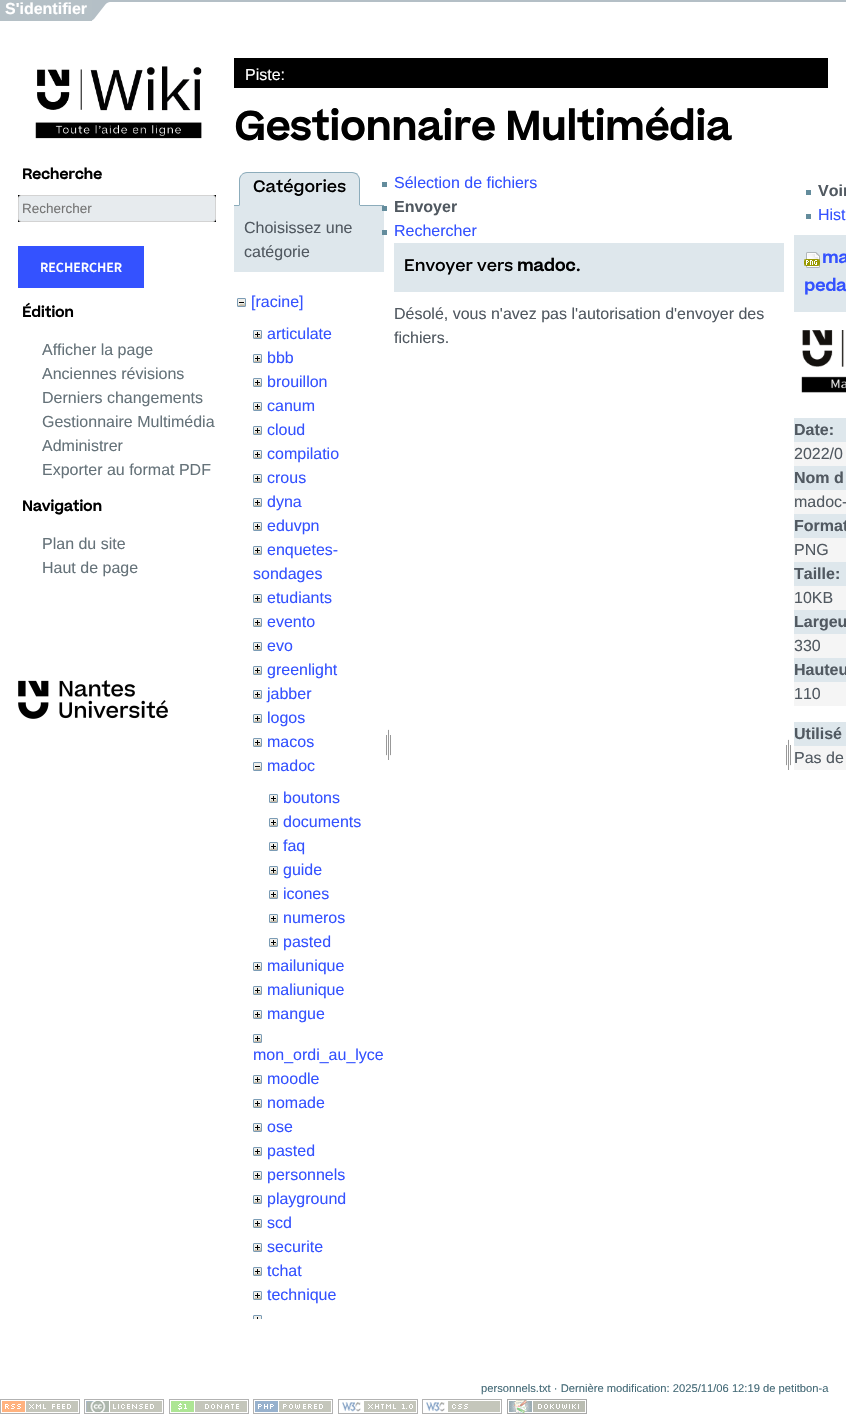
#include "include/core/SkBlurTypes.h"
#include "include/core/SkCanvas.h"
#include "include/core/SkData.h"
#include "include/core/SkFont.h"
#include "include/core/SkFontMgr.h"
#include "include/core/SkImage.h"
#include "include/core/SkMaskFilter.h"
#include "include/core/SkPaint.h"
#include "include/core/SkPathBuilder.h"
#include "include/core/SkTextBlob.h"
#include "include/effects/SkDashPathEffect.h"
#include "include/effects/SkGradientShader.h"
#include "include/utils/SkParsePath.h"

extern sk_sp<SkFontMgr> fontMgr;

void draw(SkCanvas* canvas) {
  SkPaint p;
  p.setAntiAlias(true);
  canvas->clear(SK_ColorWHITE);
  p.setColor(SkColorSetRGB(180, 191, 198));
  canvas->drawRect(SkRect::MakeLTRB(92, 0, 846, 2), p);
  p.setColor(SkColorSetRGB(181, 192, 198));
  canvas->drawRect(SkRect::MakeLTRB(0, 0, 92, 21), p);
  canvas->drawImageRect(SkImages::DeferredFromEncodedData(SkData::MakeFromFileName("images/1.png")), SkRect::MakeLTRB(92, 2, 110, 21), SkSamplingOptions());
  canvas->drawImageRect(SkImages::DeferredFromEncodedData(SkData::MakeFromFileName("images/2.png")), SkRect::MakeLTRB(35, 66, 202, 139), SkSamplingOptions());
  p.setColor(SK_ColorBLACK);
  canvas->drawRect(SkRect::MakeLTRB(18, 195, 216, 222), p);
  p.setColor(SkColorSetRGB(231, 235, 238));
  canvas->drawRoundRect(SkRect::MakeLTRB(18.5f, 195.5f, 215.5f, 221.5f), 2.5f, 2.5f, p);
  p.setStyle(SkPaint::kStroke_Style);
  p.setStrokeWidth(1);
  p.setColor(SkColorSetRGB(211, 211, 211));
  canvas->drawRoundRect(SkRect::MakeLTRB(18.5f, 195.5f, 215.5f, 221.5f), 2.5f, 2.5f, p);
  p.setStyle(SkPaint::kFill_Style);
  p.setColor(SkColorSetRGB(52, 82, 255));
  canvas->drawRect(SkRect::MakeLTRB(18, 246, 144, 288), p);
  canvas->drawImageRect(SkImages::DeferredFromEncodedData(SkData::MakeFromFileName("images/3.png")), SkRect::MakeLTRB(18, 680, 168, 719), SkSamplingOptions());
  p.setColor(SK_ColorBLACK);
  canvas->drawRect(SkRect::MakeLTRB(234, 58, 828, 88), p);
  p.setColor(SkColorSetRGB(140, 172, 187));
  canvas->drawRect(SkRect::MakeLTRB(234, 205, 384, 206), p);
  p.setColor(SkColorSetRGB(222, 231, 236));
  canvas->drawPath(SkPathBuilder().moveTo(247, 172).lineTo(352, 172).cubicTo(356.5f, 172, 360, 175.5f, 360, 180).lineTo(360, 206).lineTo(239, 206).lineTo(239, 180).cubicTo(239, 175.5f, 242.5f, 172, 247, 172).close().detach(), p);
  p.setColor(SkColorSetRGB(140, 172, 187));
  canvas->drawPath(SkPathBuilder().moveTo(247, 172).cubicTo(245, 172, 243, 173, 242, 174).lineTo(242, 175).cubicTo(243, 174, 245, 173, 247, 173).lineTo(352, 173).cubicTo(354, 173, 356, 174, 357, 175).lineTo(358, 174).cubicTo(356, 173, 354, 172, 352, 172).close().detach(), p);
  canvas->drawPath(SkPathBuilder().moveTo(360, 206).lineTo(360, 180).cubicTo(360, 178, 359, 176, 357.5f, 174.5f).lineTo(357, 175).cubicTo(358, 176, 359, 178, 359, 180).lineTo(359, 205).close().detach(), p);
  p.setColor(SkColorSetRGB(222, 231, 236));
  canvas->drawPath(SkPathBuilder().moveTo(360, 206).lineTo(359, 205).lineTo(240, 205).lineTo(239, 206).close().detach(), p);
  p.setColor(SkColorSetRGB(140, 172, 187));
  canvas->drawPath(SkPathBuilder().moveTo(239, 206).lineTo(240, 205).lineTo(240, 180).cubicTo(240, 178, 241, 176, 242, 175).lineTo(241.5f, 174.5f).cubicTo(240, 176, 239, 178, 239, 180).close().detach(), p);
  p.setColor(SkColorSetRGB(222, 231, 236));
  canvas->drawRect(SkRect::MakeLTRB(234, 206, 384, 272), p);
  canvas->drawImageRect(SkImages::DeferredFromEncodedData(SkData::MakeFromFileName("images/4.png")), SkRect::MakeLTRB(237, 298, 246, 307), SkSamplingOptions());
  canvas->drawImageRect(SkImages::DeferredFromEncodedData(SkData::MakeFromFileName("images/5.png")), SkRect::MakeLTRB(253, 330, 262, 339), SkSamplingOptions());
  canvas->drawImageRect(SkImages::DeferredFromEncodedData(SkData::MakeFromFileName("images/5.png")), SkRect::MakeLTRB(253, 354, 262, 363), SkSamplingOptions());
  canvas->drawImageRect(SkImages::DeferredFromEncodedData(SkData::MakeFromFileName("images/5.png")), SkRect::MakeLTRB(253, 378, 262, 387), SkSamplingOptions());
  canvas->drawImageRect(SkImages::DeferredFromEncodedData(SkData::MakeFromFileName("images/5.png")), SkRect::MakeLTRB(253, 402, 262, 411), SkSamplingOptions());
  canvas->drawImageRect(SkImages::DeferredFromEncodedData(SkData::MakeFromFileName("images/5.png")), SkRect::MakeLTRB(253, 426, 262, 435), SkSamplingOptions());
  canvas->drawImageRect(SkImages::DeferredFromEncodedData(SkData::MakeFromFileName("images/5.png")), SkRect::MakeLTRB(253, 450, 262, 459), SkSamplingOptions());
  canvas->drawImageRect(SkImages::DeferredFromEncodedData(SkData::MakeFromFileName("images/5.png")), SkRect::MakeLTRB(253, 474, 262, 483), SkSamplingOptions());
  canvas->drawImageRect(SkImages::DeferredFromEncodedData(SkData::MakeFromFileName("images/5.png")), SkRect::MakeLTRB(253, 498, 262, 507), SkSamplingOptions());
  canvas->drawImageRect(SkImages::DeferredFromEncodedData(SkData::MakeFromFileName("images/5.png")), SkRect::MakeLTRB(253, 522, 262, 531), SkSamplingOptions());
  canvas->drawImageRect(SkImages::DeferredFromEncodedData(SkData::MakeFromFileName("images/5.png")), SkRect::MakeLTRB(253, 546, 262, 555), SkSamplingOptions());
  canvas->drawImageRect(SkImages::DeferredFromEncodedData(SkData::MakeFromFileName("images/5.png")), SkRect::MakeLTRB(253, 594, 262, 603), SkSamplingOptions());
  canvas->drawImageRect(SkImages::DeferredFromEncodedData(SkData::MakeFromFileName("images/5.png")), SkRect::MakeLTRB(253, 618, 262, 627), SkSamplingOptions());
  canvas->drawImageRect(SkImages::DeferredFromEncodedData(SkData::MakeFromFileName("images/5.png")), SkRect::MakeLTRB(253, 642, 262, 651), SkSamplingOptions());
  canvas->drawImageRect(SkImages::DeferredFromEncodedData(SkData::MakeFromFileName("images/5.png")), SkRect::MakeLTRB(253, 666, 262, 675), SkSamplingOptions());
  canvas->drawImageRect(SkImages::DeferredFromEncodedData(SkData::MakeFromFileName("images/5.png")), SkRect::MakeLTRB(253, 690, 262, 699), SkSamplingOptions());
  canvas->drawImageRect(SkImages::DeferredFromEncodedData(SkData::MakeFromFileName("images/5.png")), SkRect::MakeLTRB(253, 714, 262, 723), SkSamplingOptions());
  canvas->drawImageRect(SkImages::DeferredFromEncodedData(SkData::MakeFromFileName("images/5.png")), SkRect::MakeLTRB(253, 738, 262, 747), SkSamplingOptions());
  canvas->drawImageRect(SkImages::DeferredFromEncodedData(SkData::MakeFromFileName("images/4.png")), SkRect::MakeLTRB(253, 762, 262, 771), SkSamplingOptions());
  canvas->drawImageRect(SkImages::DeferredFromEncodedData(SkData::MakeFromFileName("images/5.png")), SkRect::MakeLTRB(269, 794, 278, 803), SkSamplingOptions());
  canvas->drawImageRect(SkImages::DeferredFromEncodedData(SkData::MakeFromFileName("images/5.png")), SkRect::MakeLTRB(269, 818, 278, 827), SkSamplingOptions());
  canvas->drawImageRect(SkImages::DeferredFromEncodedData(SkData::MakeFromFileName("images/5.png")), SkRect::MakeLTRB(269, 842, 278, 851), SkSamplingOptions());
  canvas->drawImageRect(SkImages::DeferredFromEncodedData(SkData::MakeFromFileName("images/5.png")), SkRect::MakeLTRB(269, 866, 278, 875), SkSamplingOptions());
  canvas->drawImageRect(SkImages::DeferredFromEncodedData(SkData::MakeFromFileName("images/5.png")), SkRect::MakeLTRB(269, 890, 278, 899), SkSamplingOptions());
  canvas->drawImageRect(SkImages::DeferredFromEncodedData(SkData::MakeFromFileName("images/5.png")), SkRect::MakeLTRB(269, 914, 278, 923), SkSamplingOptions());
  canvas->drawImageRect(SkImages::DeferredFromEncodedData(SkData::MakeFromFileName("images/5.png")), SkRect::MakeLTRB(269, 938, 278, 947), SkSamplingOptions());
  canvas->drawImageRect(SkImages::DeferredFromEncodedData(SkData::MakeFromFileName("images/5.png")), SkRect::MakeLTRB(253, 962, 262, 971), SkSamplingOptions());
  canvas->drawImageRect(SkImages::DeferredFromEncodedData(SkData::MakeFromFileName("images/5.png")), SkRect::MakeLTRB(253, 986, 262, 995), SkSamplingOptions());
  canvas->drawImageRect(SkImages::DeferredFromEncodedData(SkData::MakeFromFileName("images/5.png")), SkRect::MakeLTRB(253, 1010, 262, 1019), SkSamplingOptions());
  canvas->drawImageRect(SkImages::DeferredFromEncodedData(SkData::MakeFromFileName("images/5.png")), SkRect::MakeLTRB(253, 1034, 262, 1043), SkSamplingOptions());
  canvas->drawImageRect(SkImages::DeferredFromEncodedData(SkData::MakeFromFileName("images/5.png")), SkRect::MakeLTRB(253, 1075, 262, 1084), SkSamplingOptions());
  canvas->drawImageRect(SkImages::DeferredFromEncodedData(SkData::MakeFromFileName("images/5.png")), SkRect::MakeLTRB(253, 1099, 262, 1108), SkSamplingOptions());
  canvas->drawImageRect(SkImages::DeferredFromEncodedData(SkData::MakeFromFileName("images/5.png")), SkRect::MakeLTRB(253, 1123, 262, 1132), SkSamplingOptions());
  canvas->drawImageRect(SkImages::DeferredFromEncodedData(SkData::MakeFromFileName("images/5.png")), SkRect::MakeLTRB(253, 1147, 262, 1156), SkSamplingOptions());
  canvas->drawImageRect(SkImages::DeferredFromEncodedData(SkData::MakeFromFileName("images/5.png")), SkRect::MakeLTRB(253, 1171, 262, 1180), SkSamplingOptions());
  canvas->drawImageRect(SkImages::DeferredFromEncodedData(SkData::MakeFromFileName("images/5.png")), SkRect::MakeLTRB(253, 1195, 262, 1204), SkSamplingOptions());
  canvas->drawImageRect(SkImages::DeferredFromEncodedData(SkData::MakeFromFileName("images/5.png")), SkRect::MakeLTRB(253, 1219, 262, 1228), SkSamplingOptions());
  canvas->drawImageRect(SkImages::DeferredFromEncodedData(SkData::MakeFromFileName("images/5.png")), SkRect::MakeLTRB(253, 1243, 262, 1252), SkSamplingOptions());
  canvas->drawImageRect(SkImages::DeferredFromEncodedData(SkData::MakeFromFileName("images/5.png")), SkRect::MakeLTRB(253, 1267, 262, 1276), SkSamplingOptions());
  canvas->drawImageRect(SkImages::DeferredFromEncodedData(SkData::MakeFromFileName("images/5.png")), SkRect::MakeLTRB(253, 1291, 262, 1300), SkSamplingOptions());
  canvas->drawImageRect(SkImages::DeferredFromEncodedData(SkData::MakeFromFileName("images/6.png")), SkRect::MakeLTRB(253, 1315, 262, 1319), SkSamplingOptions());
  canvas->drawImageRect(SkImages::DeferredFromEncodedData(SkData::MakeFromFileName("images/7.png")), SkRect::MakeLTRB(386, 729, 391, 760), SkSamplingOptions());
  p.setColor(SkColorSetRGB(99, 140, 156));
  canvas->drawRect(SkRect::MakeLTRB(382, 182, 387, 187), p);
  canvas->drawRect(SkRect::MakeLTRB(382, 206, 387, 211), p);
  canvas->drawRect(SkRect::MakeLTRB(382, 230, 387, 235), p);
  p.setColor(SkColorSetRGB(222, 231, 236));
  canvas->drawRect(SkRect::MakeLTRB(394, 243, 784, 292), p);
  canvas->drawImageRect(SkImages::DeferredFromEncodedData(SkData::MakeFromFileName("images/7.png")), SkRect::MakeLTRB(786, 739, 791, 770), SkSamplingOptions());
  p.setColor(SkColorSetRGB(99, 140, 156));
  canvas->drawRect(SkRect::MakeLTRB(806, 190, 811, 195), p);
  canvas->drawRect(SkRect::MakeLTRB(806, 214, 811, 219), p);
  p.setColor(SkColorSetRGB(222, 231, 236));
  canvas->drawRect(SkRect::MakeLTRB(794, 235, 846, 312), p);
  canvas->drawImageRect(SkImages::DeferredFromEncodedData(SkData::MakeFromFileName("images/8.png")), SkRect::MakeLTRB(804, 252, 820, 268), SkSamplingOptions());
  canvas->drawImageRect(SkImages::DeferredFromEncodedData(SkData::MakeFromFileName("images/9.png")), SkRect::MakeLTRB(801, 330, 846, 393), SkSamplingOptions());
  canvas->drawRect(SkRect::MakeLTRB(794, 418, 846, 442), p);
  p.setColor(SkColorSetRGB(245, 245, 245));
  canvas->drawRect(SkRect::MakeLTRB(794, 442, 846, 466), p);
  p.setColor(SkColorSetRGB(222, 231, 236));
  canvas->drawRect(SkRect::MakeLTRB(794, 466, 846, 490), p);
  p.setColor(SkColorSetRGB(245, 245, 245));
  canvas->drawRect(SkRect::MakeLTRB(794, 490, 846, 514), p);
  p.setColor(SkColorSetRGB(222, 231, 236));
  canvas->drawRect(SkRect::MakeLTRB(794, 514, 846, 538), p);
  p.setColor(SkColorSetRGB(245, 245, 245));
  canvas->drawRect(SkRect::MakeLTRB(794, 538, 846, 562), p);
  p.setColor(SkColorSetRGB(222, 231, 236));
  canvas->drawRect(SkRect::MakeLTRB(794, 562, 846, 586), p);
  p.setColor(SkColorSetRGB(245, 245, 245));
  canvas->drawRect(SkRect::MakeLTRB(794, 586, 846, 610), p);
  p.setColor(SkColorSetRGB(222, 231, 236));
  canvas->drawRect(SkRect::MakeLTRB(794, 610, 846, 634), p);
  p.setColor(SkColorSetRGB(245, 245, 245));
  canvas->drawRect(SkRect::MakeLTRB(794, 634, 846, 658), p);
  p.setColor(SkColorSetRGB(222, 231, 236));
  canvas->drawRect(SkRect::MakeLTRB(794, 658, 846, 682), p);
  p.setColor(SkColorSetRGB(245, 245, 245));
  canvas->drawRect(SkRect::MakeLTRB(794, 682, 846, 706), p);
  p.setColor(SkColorSetRGB(222, 231, 236));
  canvas->drawRect(SkRect::MakeLTRB(794, 722, 846, 746), p);
  p.setColor(SkColorSetRGB(245, 245, 245));
  canvas->drawRect(SkRect::MakeLTRB(794, 746, 846, 770), p);
  canvas->drawImageRect(SkImages::DeferredFromEncodedData(SkData::MakeFromFileName("images/10.png")), SkRect::MakeLTRB(0, 1399, 80, 1414), SkSamplingOptions());
  canvas->drawImageRect(SkImages::DeferredFromEncodedData(SkData::MakeFromFileName("images/11.png")), SkRect::MakeLTRB(84, 1399, 164, 1414), SkSamplingOptions());
  canvas->drawImageRect(SkImages::DeferredFromEncodedData(SkData::MakeFromFileName("images/12.png")), SkRect::MakeLTRB(169, 1399, 249, 1414), SkSamplingOptions());
  canvas->drawImageRect(SkImages::DeferredFromEncodedData(SkData::MakeFromFileName("images/13.png")), SkRect::MakeLTRB(253, 1399, 333, 1414), SkSamplingOptions());
  canvas->drawImageRect(SkImages::DeferredFromEncodedData(SkData::MakeFromFileName("images/14.png")), SkRect::MakeLTRB(338, 1399, 418, 1414), SkSamplingOptions());
  canvas->drawImageRect(SkImages::DeferredFromEncodedData(SkData::MakeFromFileName("images/15.png")), SkRect::MakeLTRB(422, 1399, 502, 1414), SkSamplingOptions());
  canvas->drawImageRect(SkImages::DeferredFromEncodedData(SkData::MakeFromFileName("images/16.png")), SkRect::MakeLTRB(507, 1399, 587, 1414), SkSamplingOptions());
  SkFont font1(fontMgr->matchFamilyStyle("Liberation Sans", SkFontStyle::Bold()), 16);
  font1.setSubpixel(true);
  p.setColor(SK_ColorWHITE);
  canvas->drawString("S'identifier", 5, 14, font1, p);
  SkFont font2(fontMgr->matchFamilyStyle("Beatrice", SkFontStyle::Bold()), 14);
  font2.setSubpixel(true);
  p.setColor(SK_ColorBLACK);
  canvas->drawString("Recherche", 22, 179, font2, p);
  SkFont font3(fontMgr->matchFamilyStyle("Liberation Sans", SkFontStyle::Normal()), 13.5f);
  font3.setSubpixel(true);
  p.setColor(SkColorSetRGB(117, 117, 117));
  canvas->drawString("Rechercher", 22, 213, font3, p);
  SkFont font4(fontMgr->matchFamilyStyle("Source Sans Pro", SkFontStyle(600, SkFontStyle::kNormal_Width, SkFontStyle::kUpright_Slant)), 14);
  font4.setSubpixel(true);
  p.setColor(SK_ColorWHITE);
  canvas->drawString("RECHERCHER", 40, 272, font4, p);
  p.setColor(SK_ColorBLACK);
  canvas->drawString("Édition", 22, 317, font2, p);
  SkFont font5(fontMgr->matchFamilyStyle("Liberation Sans", SkFontStyle::Normal()), 16);
  font5.setSubpixel(true);
  p.setColor(SkColorSetRGB(101, 114, 121));
  canvas->drawString("Afficher la page", 42, 355, font5, p);
  canvas->drawString("Anciennes révisions", 42, 379, font5, p);
  canvas->drawString("Derniers changements", 42, 403, font5, p);
  canvas->drawString("Gestionnaire Multimédia", 42, 427, font5, p);
  canvas->drawString("Administrer", 42, 451, font5, p);
  canvas->drawString("Exporter au format PDF", 42, 475, font5, p);
  p.setColor(SK_ColorBLACK);
  canvas->drawString("Navigation", 22, 511, font2, p);
  p.setColor(SkColorSetRGB(101, 114, 121));
  canvas->drawString("Plan du site", 42, 549, font5, p);
  canvas->drawString("Haut de page", 42, 573, font5, p);
  p.setColor(SK_ColorWHITE);
  canvas->drawString("Piste:", 245, 80, font5, p);
  SkFont font6(fontMgr->matchFamilyStyle("Beatrice", SkFontStyle::Bold()), 38.5f);
  font6.setSubpixel(true);
  p.setColor(SK_ColorBLACK);
  canvas->drawString("Gestionnaire Multimédia", 234, 140, font6, p);
  SkFont font7(fontMgr->matchFamilyStyle("Beatrice", SkFontStyle(500, SkFontStyle::kNormal_Width, SkFontStyle::kUpright_Slant)), 16);
  font7.setSubpixel(true);
  canvas->drawString("Catégories", 253, 192, font7, p);
  p.setColor(SkColorSetRGB(81, 89, 97));
  canvas->drawString("Choisissez une", 244, 233, font5, p);
  canvas->drawString("catégorie", 244, 257, font5, p);
  p.setColor(SkColorSetRGB(52, 82, 255));
  canvas->drawString("[racine]", 251, 307, font5, p);
  canvas->drawString("articulate", 267, 339, font5, p);
  canvas->drawString("bbb", 267, 363, font5, p);
  canvas->drawString("brouillon", 267, 387, font5, p);
  canvas->drawString("canum", 267, 411, font5, p);
  canvas->drawString("cloud", 267, 435, font5, p);
  canvas->drawString("compilatio", 267, 459, font5, p);
  canvas->drawString("crous", 267, 483, font5, p);
  canvas->drawString("dyna", 267, 507, font5, p);
  canvas->drawString("eduvpn", 267, 531, font5, p);
  canvas->drawString("enquetes-", 267, 555, font5, p);
  canvas->drawString("sondages", 253, 579, font5, p);
  canvas->drawString("etudiants", 267, 603, font5, p);
  canvas->drawString("evento", 267, 627, font5, p);
  canvas->drawString("evo", 267, 651, font5, p);
  canvas->drawString("greenlight", 267, 675, font5, p);
  canvas->drawString("jabber", 267, 699, font5, p);
  canvas->drawString("logos", 267, 723, font5, p);
  canvas->drawString("macos", 267, 747, font5, p);
  canvas->drawString("madoc", 267, 771, font5, p);
  canvas->drawString("boutons", 283, 803, font5, p);
  canvas->drawString("documents", 283, 827, font5, p);
  canvas->drawString("faq", 283, 851, font5, p);
  canvas->drawString("guide", 283, 875, font5, p);
  canvas->drawString("icones", 283, 899, font5, p);
  canvas->drawString("numeros", 283, 923, font5, p);
  canvas->drawString("pasted", 283, 947, font5, p);
  canvas->drawString("mailunique", 267, 971, font5, p);
  canvas->drawString("maliunique", 267, 995, font5, p);
  canvas->drawString("mangue", 267, 1019, font5, p);
  canvas->drawString("mon_ordi_au_lyce", 253, 1060, font5, p);
  canvas->drawString("moodle", 267, 1084, font5, p);
  canvas->drawString("nomade", 267, 1108, font5, p);
  canvas->drawString("ose", 267, 1132, font5, p);
  canvas->drawString("pasted", 267, 1156, font5, p);
  canvas->drawString("personnels", 267, 1180, font5, p);
  canvas->drawString("playground", 267, 1204, font5, p);
  canvas->drawString("scd", 267, 1228, font5, p);
  canvas->drawString("securite", 267, 1252, font5, p);
  canvas->drawString("tchat", 267, 1276, font5, p);
  canvas->drawString("technique", 267, 1300, font5, p);
  canvas->drawString("Sélection de fichiers", 394, 188, font5, p);
  p.setColor(SkColorSetRGB(81, 89, 97));
  canvas->drawString("Envoyer", 394, 212, font1, p);
  p.setColor(SkColorSetRGB(52, 82, 255));
  canvas->drawString("Rechercher", 394, 236, font5, p);
  p.setColor(SK_ColorBLACK);
  canvas->drawString("Envoyer vers", 404, 271, font7, p);
  SkFont font8(fontMgr->matchFamilyStyle("Beatrice", SkFontStyle::Bold()), 16);
  font8.setSubpixel(true);
  canvas->drawString("madoc", 517, 271, font8, p);
  canvas->drawString(".", 576, 271, font7, p);
  p.setColor(SkColorSetRGB(81, 89, 97));
  canvas->drawString("Désolé, vous n'avez pas l'autorisation d'envoyer des", 394, 319, font5, p);
  canvas->drawString("fichiers.", 394, 343, font5, p);
  canvas->drawString("Voir", 818, 196, font1, p);
  p.setColor(SkColorSetRGB(52, 82, 255));
  canvas->drawString("Hist", 818, 220, font5, p);
  canvas->drawString("ma", 822, 263, font8, p);
  canvas->drawString("peda", 804, 291, font8, p);
  p.setColor(SkColorSetRGB(81, 89, 97));
  canvas->drawString("Date:", 794, 435, font1, p);
  canvas->drawString("2022/0", 794, 459, font5, p);
  canvas->drawString("Nom d", 794, 483, font1, p);
  canvas->drawString("madoc-", 794, 507, font5, p);
  canvas->drawString("Format", 794, 531, font1, p);
  canvas->drawString("PNG", 794, 555, font5, p);
  canvas->drawString("Taille:", 794, 579, font1, p);
  canvas->drawString("10KB", 794, 603, font5, p);
  canvas->drawString("Largeu", 794, 627, font1, p);
  canvas->drawString("330", 794, 651, font5, p);
  canvas->drawString("Hauteu", 794, 675, font1, p);
  canvas->drawString("110", 794, 699, font5, p);
  canvas->drawString("Utilisé", 794, 739, font1, p);
  canvas->drawString("Pas de", 794, 763, font5, p);
  SkFont font9(fontMgr->matchFamilyStyle("Liberation Sans", SkFontStyle::Normal()), 11.2f);
  font9.setSubpixel(true);
  p.setColor(SkColorSetRGB(67, 105, 118));
  canvas->drawString("personnels.txt · Dernière modification: 2025/11/06 12:19 de petitbon-a", 481, 1392, font9, p);
}
